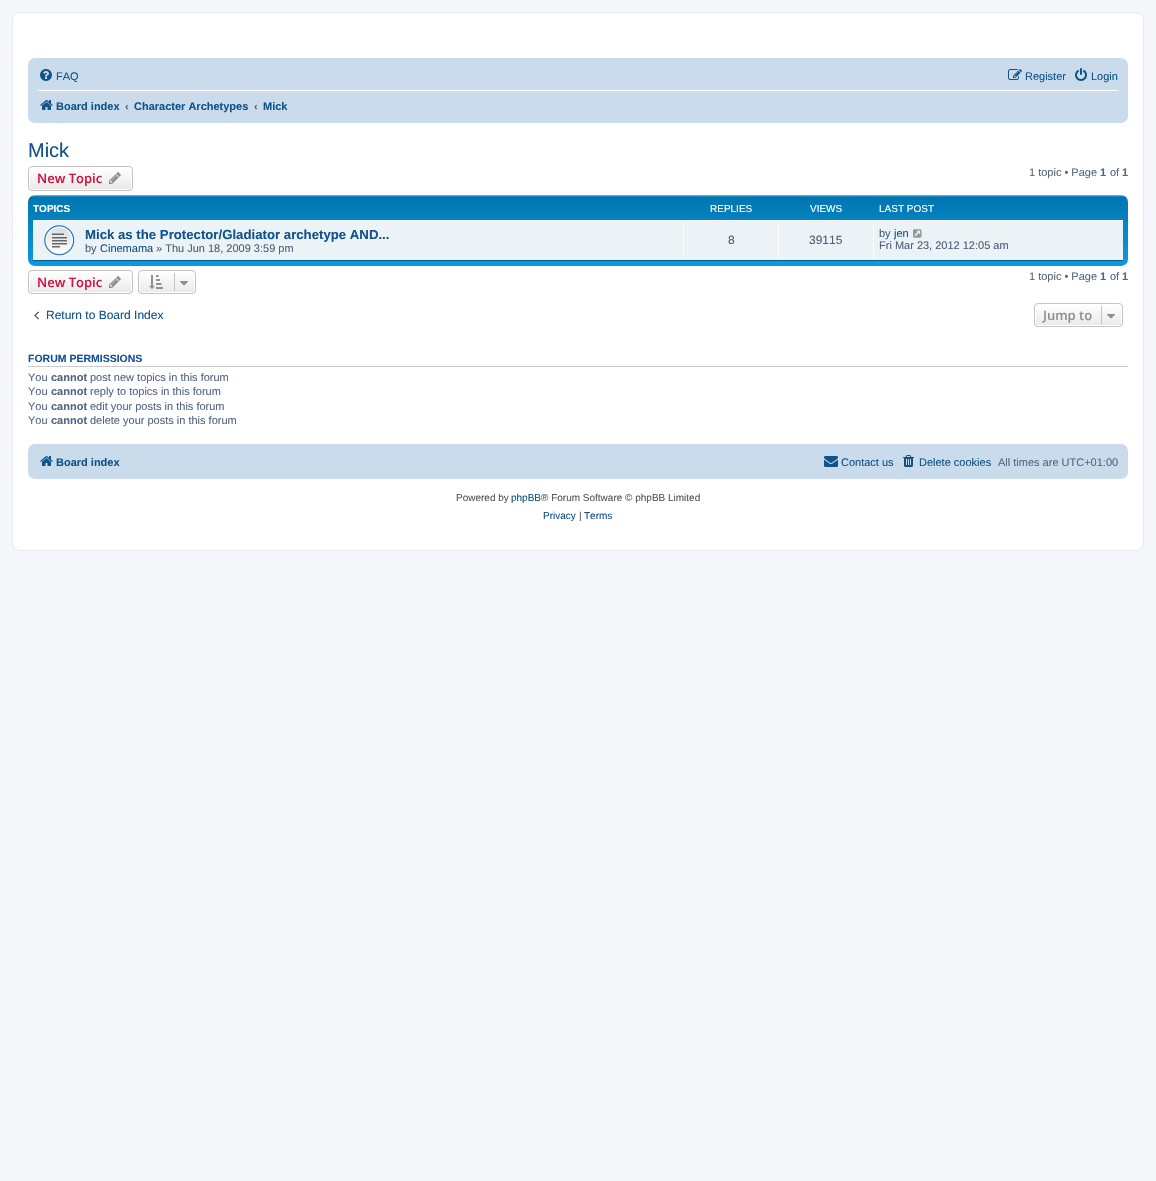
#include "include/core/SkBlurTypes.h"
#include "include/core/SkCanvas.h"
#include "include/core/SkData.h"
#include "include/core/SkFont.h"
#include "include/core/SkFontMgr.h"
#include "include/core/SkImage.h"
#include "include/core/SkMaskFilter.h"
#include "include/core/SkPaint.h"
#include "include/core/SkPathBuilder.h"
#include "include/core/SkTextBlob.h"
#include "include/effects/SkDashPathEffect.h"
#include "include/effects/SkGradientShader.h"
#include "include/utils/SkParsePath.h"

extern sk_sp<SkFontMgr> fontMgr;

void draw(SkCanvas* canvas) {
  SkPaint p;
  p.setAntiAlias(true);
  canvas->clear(SkColorSetRGB(245, 247, 250));
  p.setColor(SK_ColorWHITE);
  canvas->drawRoundRect(SkRect::MakeLTRB(12.5f, 12.5f, 1143.5f, 550.5f), 7.5f, 7.5f, p);
  p.setStyle(SkPaint::kStroke_Style);
  p.setStrokeWidth(1);
  p.setColor(SkColorSetRGB(230, 233, 237));
  canvas->drawRoundRect(SkRect::MakeLTRB(12.5f, 12.5f, 1143.5f, 550.5f), 7.5f, 7.5f, p);
  p.setStyle(SkPaint::kFill_Style);
  p.setColor(SkColorSetRGB(202, 220, 235));
  canvas->drawRoundRect(SkRect::MakeLTRB(28, 58, 1128, 123), 7, 7, p);
  canvas->drawImageRect(SkImages::DeferredFromEncodedData(SkData::MakeFromFileName("images/1.png")), SkRect::MakeLTRB(40, 69, 52, 81), SkSamplingOptions());
  canvas->drawImageRect(SkImages::DeferredFromEncodedData(SkData::MakeFromFileName("images/2.png")), SkRect::MakeLTRB(1008, 69, 1022, 80), SkSamplingOptions());
  canvas->drawImageRect(SkImages::DeferredFromEncodedData(SkData::MakeFromFileName("images/3.png")), SkRect::MakeLTRB(1075, 68, 1087, 81), SkSamplingOptions());
  p.setColor(SK_ColorWHITE);
  canvas->drawRect(SkRect::MakeLTRB(38, 90, 1118, 91), p);
  canvas->drawImageRect(SkImages::DeferredFromEncodedData(SkData::MakeFromFileName("images/4.png")), SkRect::MakeLTRB(40, 100, 53, 110), SkSamplingOptions());
  canvas->save();
  canvas->clipPath(SkPathBuilder().moveTo(32, 166).lineTo(129, 166).cubicTo(131, 166, 133, 168, 133, 170).lineTo(133, 187).cubicTo(133, 189, 131, 191, 129, 191).lineTo(32, 191).cubicTo(30, 191, 28, 189, 28, 187).lineTo(28, 170).cubicTo(28, 168, 30, 166, 32, 166).close().detach(), true);
  {
    const SkColor colors[] = {SK_ColorWHITE, SkColorSetRGB(233, 233, 233)};
    const float stops[] = {0, 1};
    const SkPoint ends[] = {{81, 167}, {81, 190}};
    p.setShader(SkGradientShader::MakeLinear(ends, colors, stops, 2, SkTileMode::kClamp));
    p.setAlpha(255);
  }
  canvas->drawRect(SkRect::MakeLTRB(28, 167, 133, 190), p);
  canvas->restore();
  p.setStyle(SkPaint::kStroke_Style);
  p.setShader(nullptr);
  p.setColor(SK_ColorWHITE);
  canvas->drawRoundRect(SkRect::MakeLTRB(29.5f, 167.5f, 131.5f, 189.5f), 2.5f, 2.5f, p);
  p.setColor(SkColorSetRGB(199, 195, 191));
  canvas->drawRoundRect(SkRect::MakeLTRB(28.5f, 166.5f, 132.5f, 190.5f), 3.5f, 3.5f, p);
  canvas->drawImageRect(SkImages::DeferredFromEncodedData(SkData::MakeFromFileName("images/5.png")), SkRect::MakeLTRB(109, 172, 121, 184), SkSamplingOptions());
  p.setStyle(SkPaint::kFill_Style);
  {
    const SkColor colors[] = {SkColorSetRGB(106, 206, 255), SkColorSetRGB(0, 118, 177), SkColorSetRGB(18, 163, 235)};
    const float stops[] = {0, 0.02f, 1};
    const SkPoint ends[] = {{578, 195}, {578, 287}};
    p.setShader(SkGradientShader::MakeLinear(ends, colors, stops, 3, SkTileMode::kClamp));
    p.setAlpha(255);
  }
  canvas->drawRoundRect(SkRect::MakeLTRB(28, 195, 1128, 266), 7, 7, p);
  p.setShader(nullptr);
  p.setColor(SkColorSetRGB(236, 243, 247));
  canvas->drawRect(SkRect::MakeLTRB(33, 221, 1123, 260), p);
  p.setColor(SK_ColorWHITE);
  canvas->drawRect(SkRect::MakeLTRB(33, 220, 1123, 221), p);
  p.setColor(SkColorSetRGB(0, 96, 143));
  canvas->drawRect(SkRect::MakeLTRB(33, 260, 1123, 261), p);
  canvas->drawImageRect(SkImages::DeferredFromEncodedData(SkData::MakeFromFileName("images/6.png")), SkRect::MakeLTRB(44, 225, 75, 256), SkSamplingOptions());
  p.setColor(SK_ColorWHITE);
  canvas->drawRect(SkRect::MakeLTRB(683, 223, 684, 258), p);
  canvas->drawRect(SkRect::MakeLTRB(778, 223, 779, 258), p);
  canvas->drawRect(SkRect::MakeLTRB(873, 223, 874, 258), p);
  canvas->drawImageRect(SkImages::DeferredFromEncodedData(SkData::MakeFromFileName("images/7.png")), SkRect::MakeLTRB(913, 229, 922, 238), SkSamplingOptions());
  canvas->save();
  canvas->clipPath(SkPathBuilder().moveTo(32, 270).lineTo(129, 270).cubicTo(131, 270, 133, 272, 133, 274).lineTo(133, 290).cubicTo(133, 292, 131, 294, 129, 294).lineTo(32, 294).cubicTo(30, 294, 28, 292, 28, 290).lineTo(28, 274).cubicTo(28, 272, 30, 270, 32, 270).close().detach(), true);
  {
    const SkColor colors[] = {SK_ColorWHITE, SkColorSetRGB(233, 233, 233)};
    const float stops[] = {0, 1};
    const SkPoint ends[] = {{81, 271}, {81, 293}};
    p.setShader(SkGradientShader::MakeLinear(ends, colors, stops, 2, SkTileMode::kClamp));
    p.setAlpha(255);
  }
  canvas->drawRect(SkRect::MakeLTRB(28, 271, 133, 293), p);
  canvas->restore();
  p.setStyle(SkPaint::kStroke_Style);
  p.setShader(nullptr);
  p.setColor(SK_ColorWHITE);
  canvas->drawRoundRect(SkRect::MakeLTRB(29.5f, 271.5f, 131.5f, 292.5f), 2.5f, 2.5f, p);
  p.setColor(SkColorSetRGB(199, 195, 191));
  canvas->drawRoundRect(SkRect::MakeLTRB(28.5f, 270.5f, 132.5f, 293.5f), 3.5f, 3.5f, p);
  canvas->drawImageRect(SkImages::DeferredFromEncodedData(SkData::MakeFromFileName("images/5.png")), SkRect::MakeLTRB(109, 276, 121, 288), SkSamplingOptions());
  canvas->save();
  canvas->clipPath(SkPathBuilder().moveTo(142, 270).lineTo(192, 270).cubicTo(194, 270, 196, 272, 196, 274).lineTo(196, 290).cubicTo(196, 292, 194, 294, 192, 294).lineTo(142, 294).cubicTo(140, 294, 138, 292, 138, 290).lineTo(138, 274).cubicTo(138, 272, 140, 270, 142, 270).close().detach(), true);
  p.setStyle(SkPaint::kFill_Style);
  {
    const SkColor colors[] = {SK_ColorWHITE, SkColorSetRGB(233, 233, 233)};
    const float stops[] = {0, 1};
    const SkPoint ends[] = {{167, 271}, {167, 293}};
    p.setShader(SkGradientShader::MakeLinear(ends, colors, stops, 2, SkTileMode::kClamp));
    p.setAlpha(255);
  }
  canvas->drawRect(SkRect::MakeLTRB(138, 271, 196, 293), p);
  canvas->restore();
  p.setStyle(SkPaint::kStroke_Style);
  p.setShader(nullptr);
  p.setColor(SK_ColorWHITE);
  canvas->drawRoundRect(SkRect::MakeLTRB(139.5f, 271.5f, 194.5f, 292.5f), 2.5f, 2.5f, p);
  p.setColor(SkColorSetRGB(199, 195, 191));
  canvas->drawRoundRect(SkRect::MakeLTRB(138.5f, 270.5f, 195.5f, 293.5f), 3.5f, 3.5f, p);
  canvas->drawImageRect(SkImages::DeferredFromEncodedData(SkData::MakeFromFileName("images/8.png")), SkRect::MakeLTRB(149, 275, 163, 289), SkSamplingOptions());
  p.setStyle(SkPaint::kFill_Style);
  canvas->drawRect(SkRect::MakeLTRB(174, 273, 175, 291), p);
  canvas->drawImageRect(SkImages::DeferredFromEncodedData(SkData::MakeFromFileName("images/9.png")), SkRect::MakeLTRB(180, 281, 188, 286), SkSamplingOptions());
  canvas->drawImageRect(SkImages::DeferredFromEncodedData(SkData::MakeFromFileName("images/10.png")), SkRect::MakeLTRB(34, 311, 39, 320), SkSamplingOptions());
  canvas->save();
  canvas->clipPath(SkPathBuilder().moveTo(1038, 303).lineTo(1119, 303).cubicTo(1121, 303, 1123, 305, 1123, 307).lineTo(1123, 323).cubicTo(1123, 325, 1121, 327, 1119, 327).lineTo(1038, 327).cubicTo(1036, 327, 1034, 325, 1034, 323).lineTo(1034, 307).cubicTo(1034, 305, 1036, 303, 1038, 303).close().detach(), true);
  {
    const SkColor colors[] = {SK_ColorWHITE, SkColorSetRGB(233, 233, 233)};
    const float stops[] = {0, 1};
    const SkPoint ends[] = {{1079, 304}, {1079, 326}};
    p.setShader(SkGradientShader::MakeLinear(ends, colors, stops, 2, SkTileMode::kClamp));
    p.setAlpha(255);
  }
  canvas->drawRect(SkRect::MakeLTRB(1034, 304, 1123, 326), p);
  canvas->restore();
  p.setStyle(SkPaint::kStroke_Style);
  p.setShader(nullptr);
  p.setColor(SK_ColorWHITE);
  canvas->drawRoundRect(SkRect::MakeLTRB(1035.5f, 304.5f, 1121.5f, 325.5f), 2.5f, 2.5f, p);
  p.setColor(SkColorSetRGB(199, 195, 191));
  canvas->drawRoundRect(SkRect::MakeLTRB(1034.5f, 303.5f, 1122.5f, 326.5f), 3.5f, 3.5f, p);
  p.setStyle(SkPaint::kFill_Style);
  canvas->drawRect(SkRect::MakeLTRB(1101, 306, 1102, 324), p);
  canvas->drawImageRect(SkImages::DeferredFromEncodedData(SkData::MakeFromFileName("images/9.png")), SkRect::MakeLTRB(1107, 314, 1115, 319), SkSamplingOptions());
  p.setColor(SkColorSetRGB(204, 204, 204));
  canvas->drawRect(SkRect::MakeLTRB(28, 366, 1128, 367), p);
  p.setColor(SkColorSetRGB(202, 220, 235));
  canvas->drawRoundRect(SkRect::MakeLTRB(28, 444, 1128, 479), 7, 7, p);
  canvas->drawImageRect(SkImages::DeferredFromEncodedData(SkData::MakeFromFileName("images/4.png")), SkRect::MakeLTRB(40, 456, 53, 466), SkSamplingOptions());
  canvas->drawImageRect(SkImages::DeferredFromEncodedData(SkData::MakeFromFileName("images/11.png")), SkRect::MakeLTRB(824, 456, 838, 467), SkSamplingOptions());
  canvas->drawImageRect(SkImages::DeferredFromEncodedData(SkData::MakeFromFileName("images/12.png")), SkRect::MakeLTRB(903, 455, 914, 467), SkSamplingOptions());
  SkFont font1(fontMgr->matchFamilyStyle("Liberation Sans", SkFontStyle::Normal()), 11);
  font1.setSubpixel(true);
  p.setColor(SkColorSetRGB(16, 82, 137));
  canvas->drawString("FAQ", 56, 80, font1, p);
  canvas->drawString("Register", 1025, 80, font1, p);
  canvas->drawString("Login", 1091, 80, font1, p);
  SkFont font2(fontMgr->matchFamilyStyle("Liberation Sans", SkFontStyle::Bold()), 11);
  font2.setSubpixel(true);
  canvas->drawString("Board index", 56, 110, font2, p);
  p.setColor(SkColorSetRGB(83, 100, 130));
  canvas->drawString("‹", 125, 110, font2, p);
  p.setColor(SkColorSetRGB(16, 82, 137));
  canvas->drawString("Character Archetypes", 134, 110, font2, p);
  p.setColor(SkColorSetRGB(83, 100, 130));
  canvas->drawString("‹", 254, 110, font2, p);
  p.setColor(SkColorSetRGB(16, 82, 137));
  canvas->drawString("Mick", 263, 110, font2, p);
  SkFont font3(fontMgr->matchFamilyStyle("Liberation Sans", SkFontStyle::Normal()), 20);
  font3.setSubpixel(true);
  canvas->drawString("Mick", 28, 157, font3, p);
  SkFont font4(fontMgr->matchFamilyStyle("Open Sans", SkFontStyle(600, SkFontStyle::kNormal_Width, SkFontStyle::kUpright_Slant)), 13);
  font4.setSubpixel(true);
  p.setColor(SkColorSetRGB(211, 17, 65));
  canvas->drawString("New Topic", 37, 183, font4, p);
  p.setColor(SkColorSetRGB(83, 100, 130));
  canvas->drawString("1 topic • Page", 1029, 176, font1, p);
  canvas->drawString("1", 1100, 176, font2, p);
  canvas->drawString("of", 1110, 176, font1, p);
  canvas->drawString("1", 1122, 176, font2, p);
  SkFont font5(fontMgr->matchFamilyStyle("Liberation Sans", SkFontStyle::Bold()), 10);
  font5.setSubpixel(true);
  p.setColor(SK_ColorWHITE);
  canvas->drawString("TOPICS", 33, 212, font5, p);
  SkFont font6(fontMgr->matchFamilyStyle("Liberation Sans", SkFontStyle::Normal()), 10);
  font6.setSubpixel(true);
  canvas->drawString("REPLIES", 710, 212, font6, p);
  canvas->drawString("VIEWS", 810, 212, font6, p);
  canvas->drawString("LAST POST", 879, 212, font6, p);
  SkFont font7(fontMgr->matchFamilyStyle("Liberation Sans", SkFontStyle::Bold()), 13.2f);
  font7.setSubpixel(true);
  p.setColor(SkColorSetRGB(16, 82, 137));
  canvas->drawString("Mick as the Protector/Gladiator archetype AND...", 85, 239, font7, p);
  p.setColor(SkColorSetRGB(76, 93, 119));
  canvas->drawString("by", 85, 252, font1, p);
  p.setColor(SkColorSetRGB(16, 82, 137));
  canvas->drawString("Cinemama", 100, 252, font1, p);
  p.setColor(SkColorSetRGB(76, 93, 119));
  canvas->drawString("» Thu Jun 18, 2009 3:59 pm", 156, 252, font1, p);
  SkFont font8(fontMgr->matchFamilyStyle("Liberation Sans", SkFontStyle::Normal()), 12);
  font8.setSubpixel(true);
  canvas->drawString("8", 728, 244, font8, p);
  canvas->drawString("39115", 809, 244, font8, p);
  canvas->drawString("by", 879, 237, font1, p);
  p.setColor(SkColorSetRGB(16, 82, 137));
  canvas->drawString("jen", 894, 237, font1, p);
  p.setColor(SkColorSetRGB(76, 93, 119));
  canvas->drawString("Fri Mar 23, 2012 12:05 am", 879, 249, font1, p);
  p.setColor(SkColorSetRGB(211, 17, 65));
  canvas->drawString("New Topic", 37, 287, font4, p);
  p.setColor(SkColorSetRGB(83, 100, 130));
  canvas->drawString("1 topic • Page", 1029, 280, font1, p);
  canvas->drawString("1", 1100, 280, font2, p);
  canvas->drawString("of", 1110, 280, font1, p);
  canvas->drawString("1", 1122, 280, font2, p);
  p.setColor(SkColorSetRGB(16, 82, 137));
  canvas->drawString("Return to Board Index", 46, 319, font8, p);
  p.setColor(SkColorSetRGB(143, 143, 143));
  canvas->drawString("Jump to", 1043, 320, font4, p);
  SkFont font9(fontMgr->matchFamilyStyle("Liberation Sans", SkFontStyle::Bold()), 10.5f);
  font9.setSubpixel(true);
  p.setColor(SkColorSetRGB(17, 80, 152));
  canvas->drawString("FORUM PERMISSIONS", 28, 362, font9, p);
  p.setColor(SkColorSetRGB(83, 100, 130));
  canvas->drawString("You", 28, 381, font1, p);
  canvas->drawString("cannot", 51, 381, font2, p);
  canvas->drawString("post new topics in this forum", 90, 381, font1, p);
  canvas->drawString("You", 28, 395, font1, p);
  canvas->drawString("cannot", 51, 395, font2, p);
  canvas->drawString("reply to topics in this forum", 90, 395, font1, p);
  canvas->drawString("You", 28, 410, font1, p);
  canvas->drawString("cannot", 51, 410, font2, p);
  canvas->drawString("edit your posts in this forum", 90, 410, font1, p);
  canvas->drawString("You", 28, 424, font1, p);
  canvas->drawString("cannot", 51, 424, font2, p);
  canvas->drawString("delete your posts in this forum", 90, 424, font1, p);
  p.setColor(SkColorSetRGB(16, 82, 137));
  canvas->drawString("Board index", 56, 466, font2, p);
  canvas->drawString("Contact us", 841, 466, font1, p);
  canvas->drawString("Delete cookies", 919, 466, font1, p);
  p.setColor(SkColorSetRGB(83, 100, 130));
  canvas->drawString("All times are UTC+01:00", 998, 466, font1, p);
  p.setColor(SkColorSetRGB(85, 85, 85));
  canvas->drawString("Powered by", 456, 501, font6, p);
  p.setColor(SkColorSetRGB(16, 82, 137));
  canvas->drawString("phpBB", 511, 501, font6, p);
  p.setColor(SkColorSetRGB(85, 85, 85));
  canvas->drawString("® Forum Software © phpBB Limited", 541, 501, font6, p);
  p.setColor(SkColorSetRGB(16, 82, 137));
  canvas->drawString("Privacy", 543, 519, font6, p);
  p.setColor(SkColorSetRGB(85, 85, 85));
  canvas->drawString("|", 579, 519, font6, p);
  p.setColor(SkColorSetRGB(16, 82, 137));
  canvas->drawString("Terms", 584, 519, font6, p);
}
